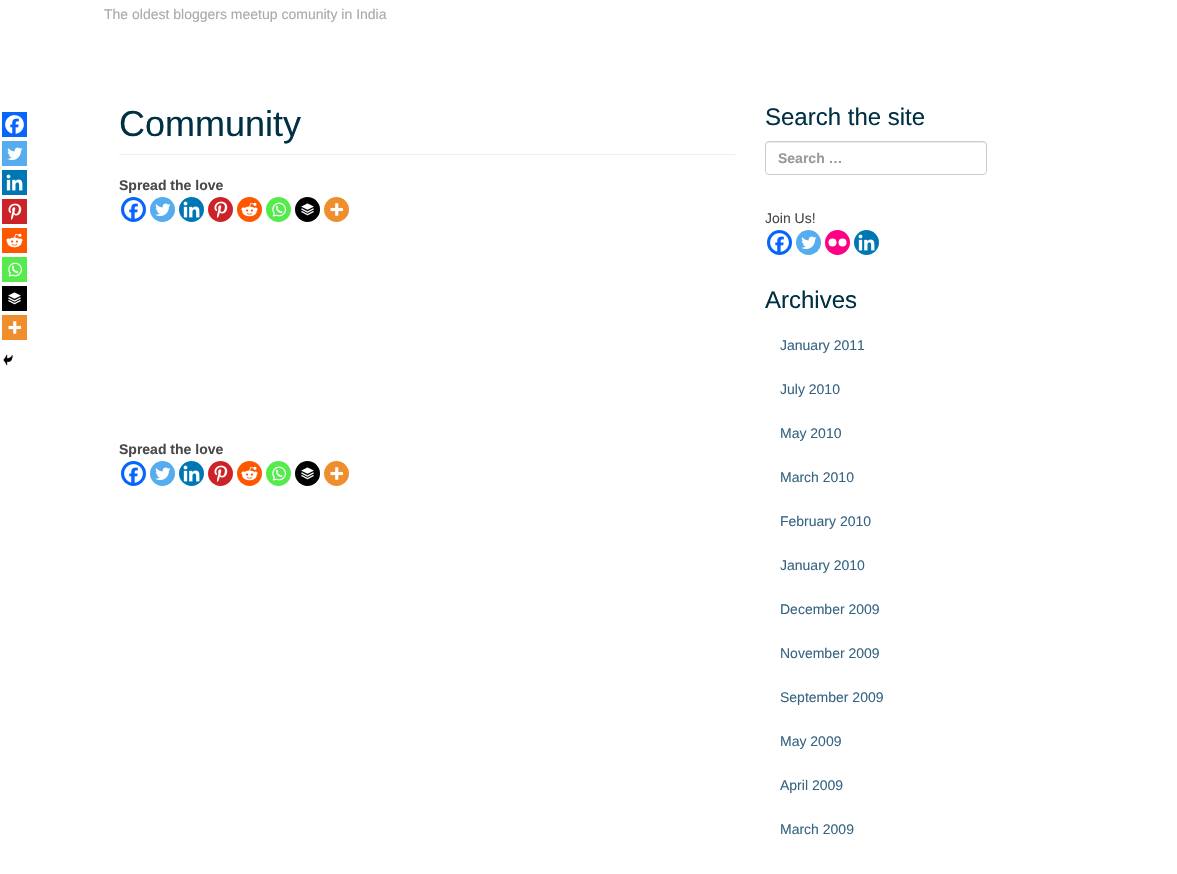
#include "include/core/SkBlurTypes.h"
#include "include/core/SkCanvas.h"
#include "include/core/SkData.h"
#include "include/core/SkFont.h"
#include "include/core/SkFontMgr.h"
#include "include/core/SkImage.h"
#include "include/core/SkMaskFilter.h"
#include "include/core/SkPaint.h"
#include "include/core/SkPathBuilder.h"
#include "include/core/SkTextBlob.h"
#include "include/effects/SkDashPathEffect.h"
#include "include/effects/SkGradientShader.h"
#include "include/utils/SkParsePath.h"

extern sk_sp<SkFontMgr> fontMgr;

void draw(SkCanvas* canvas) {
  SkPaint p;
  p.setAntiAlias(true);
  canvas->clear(SK_ColorWHITE);
  p.setColor(SkColorSetRGB(238, 238, 238));
  canvas->drawRect(SkRect::MakeLTRB(119, 154, 735, 155), p);
  p.setColor(SkColorSetRGB(7, 101, 254));
  canvas->drawRect(SkRect::MakeLTRB(2, 112, 27, 137), p);
  canvas->drawImageRect(SkImages::DeferredFromEncodedData(SkData::MakeFromFileName("images/1.png")), SkRect::MakeLTRB(5, 115, 24, 134), SkSamplingOptions());
  p.setColor(SkColorSetRGB(85, 172, 238));
  canvas->drawRect(SkRect::MakeLTRB(2, 141, 27, 166), p);
  canvas->drawImageRect(SkImages::DeferredFromEncodedData(SkData::MakeFromFileName("images/2.png")), SkRect::MakeLTRB(7, 147, 23, 161), SkSamplingOptions());
  p.setColor(SkColorSetRGB(0, 119, 181));
  canvas->drawRect(SkRect::MakeLTRB(2, 170, 27, 195), p);
  canvas->drawImageRect(SkImages::DeferredFromEncodedData(SkData::MakeFromFileName("images/3.png")), SkRect::MakeLTRB(6, 174, 23, 191), SkSamplingOptions());
  p.setColor(SkColorSetRGB(204, 35, 41));
  canvas->drawRect(SkRect::MakeLTRB(2, 199, 27, 224), p);
  canvas->drawImageRect(SkImages::DeferredFromEncodedData(SkData::MakeFromFileName("images/4.png")), SkRect::MakeLTRB(8, 203, 22, 220), SkSamplingOptions());
  p.setColor(SkColorSetRGB(255, 87, 0));
  canvas->drawRect(SkRect::MakeLTRB(2, 228, 27, 253), p);
  canvas->drawImageRect(SkImages::DeferredFromEncodedData(SkData::MakeFromFileName("images/5.png")), SkRect::MakeLTRB(6, 233, 23, 248), SkSamplingOptions());
  p.setColor(SkColorSetRGB(85, 235, 76));
  canvas->drawRect(SkRect::MakeLTRB(2, 257, 27, 282), p);
  canvas->drawImageRect(SkImages::DeferredFromEncodedData(SkData::MakeFromFileName("images/6.png")), SkRect::MakeLTRB(8, 262, 22, 277), SkSamplingOptions());
  p.setColor(SK_ColorBLACK);
  canvas->drawRect(SkRect::MakeLTRB(2, 286, 27, 311), p);
  canvas->drawImageRect(SkImages::DeferredFromEncodedData(SkData::MakeFromFileName("images/7.png")), SkRect::MakeLTRB(8, 292, 21, 305), SkSamplingOptions());
  p.setColor(SkColorSetRGB(238, 142, 45));
  canvas->drawRect(SkRect::MakeLTRB(2, 315, 27, 340), p);
  canvas->drawImageRect(SkImages::DeferredFromEncodedData(SkData::MakeFromFileName("images/8.png")), SkRect::MakeLTRB(8, 321, 21, 334), SkSamplingOptions());
  canvas->drawImageRect(SkImages::DeferredFromEncodedData(SkData::MakeFromFileName("images/9.png")), SkRect::MakeLTRB(3, 354, 13, 366), SkSamplingOptions());
  p.setColor(SkColorSetRGB(7, 101, 254));
  canvas->drawCircle(133.5f, 209.5f, 12.5f, p);
  canvas->drawImageRect(SkImages::DeferredFromEncodedData(SkData::MakeFromFileName("images/10.png")), SkRect::MakeLTRB(124, 200, 143, 219), SkSamplingOptions());
  p.setColor(SkColorSetRGB(85, 172, 238));
  canvas->drawCircle(162.5f, 209.5f, 12.5f, p);
  canvas->drawImageRect(SkImages::DeferredFromEncodedData(SkData::MakeFromFileName("images/2.png")), SkRect::MakeLTRB(155, 203, 171, 217), SkSamplingOptions());
  p.setColor(SkColorSetRGB(0, 119, 181));
  canvas->drawCircle(191.5f, 209.5f, 12.5f, p);
  canvas->drawImageRect(SkImages::DeferredFromEncodedData(SkData::MakeFromFileName("images/3.png")), SkRect::MakeLTRB(183, 201, 200, 218), SkSamplingOptions());
  p.setColor(SkColorSetRGB(204, 35, 41));
  canvas->drawCircle(220.5f, 209.5f, 12.5f, p);
  canvas->drawImageRect(SkImages::DeferredFromEncodedData(SkData::MakeFromFileName("images/4.png")), SkRect::MakeLTRB(214, 201, 228, 218), SkSamplingOptions());
  p.setColor(SkColorSetRGB(255, 87, 0));
  canvas->drawCircle(249.5f, 209.5f, 12.5f, p);
  canvas->drawImageRect(SkImages::DeferredFromEncodedData(SkData::MakeFromFileName("images/5.png")), SkRect::MakeLTRB(241, 202, 258, 217), SkSamplingOptions());
  p.setColor(SkColorSetRGB(85, 235, 76));
  canvas->drawCircle(278.5f, 209.5f, 12.5f, p);
  canvas->drawImageRect(SkImages::DeferredFromEncodedData(SkData::MakeFromFileName("images/6.png")), SkRect::MakeLTRB(272, 202, 286, 217), SkSamplingOptions());
  p.setColor(SK_ColorBLACK);
  canvas->drawCircle(307.5f, 209.5f, 12.5f, p);
  canvas->drawImageRect(SkImages::DeferredFromEncodedData(SkData::MakeFromFileName("images/7.png")), SkRect::MakeLTRB(301, 203, 314, 216), SkSamplingOptions());
  p.setColor(SkColorSetRGB(238, 142, 45));
  canvas->drawCircle(336.5f, 209.5f, 12.5f, p);
  canvas->drawImageRect(SkImages::DeferredFromEncodedData(SkData::MakeFromFileName("images/8.png")), SkRect::MakeLTRB(330, 203, 343, 216), SkSamplingOptions());
  p.setColor(SkColorSetRGB(7, 101, 254));
  canvas->drawCircle(133.5f, 473.5f, 12.5f, p);
  canvas->drawImageRect(SkImages::DeferredFromEncodedData(SkData::MakeFromFileName("images/10.png")), SkRect::MakeLTRB(124, 464, 143, 483), SkSamplingOptions());
  p.setColor(SkColorSetRGB(85, 172, 238));
  canvas->drawCircle(162.5f, 473.5f, 12.5f, p);
  canvas->drawImageRect(SkImages::DeferredFromEncodedData(SkData::MakeFromFileName("images/2.png")), SkRect::MakeLTRB(155, 467, 171, 481), SkSamplingOptions());
  p.setColor(SkColorSetRGB(0, 119, 181));
  canvas->drawCircle(191.5f, 473.5f, 12.5f, p);
  canvas->drawImageRect(SkImages::DeferredFromEncodedData(SkData::MakeFromFileName("images/3.png")), SkRect::MakeLTRB(183, 465, 200, 482), SkSamplingOptions());
  p.setColor(SkColorSetRGB(204, 35, 41));
  canvas->drawCircle(220.5f, 473.5f, 12.5f, p);
  canvas->drawImageRect(SkImages::DeferredFromEncodedData(SkData::MakeFromFileName("images/4.png")), SkRect::MakeLTRB(214, 465, 228, 482), SkSamplingOptions());
  p.setColor(SkColorSetRGB(255, 87, 0));
  canvas->drawCircle(249.5f, 473.5f, 12.5f, p);
  canvas->drawImageRect(SkImages::DeferredFromEncodedData(SkData::MakeFromFileName("images/5.png")), SkRect::MakeLTRB(241, 466, 258, 481), SkSamplingOptions());
  p.setColor(SkColorSetRGB(85, 235, 76));
  canvas->drawCircle(278.5f, 473.5f, 12.5f, p);
  canvas->drawImageRect(SkImages::DeferredFromEncodedData(SkData::MakeFromFileName("images/6.png")), SkRect::MakeLTRB(272, 466, 286, 481), SkSamplingOptions());
  p.setColor(SK_ColorBLACK);
  canvas->drawCircle(307.5f, 473.5f, 12.5f, p);
  canvas->drawImageRect(SkImages::DeferredFromEncodedData(SkData::MakeFromFileName("images/7.png")), SkRect::MakeLTRB(301, 467, 314, 480), SkSamplingOptions());
  p.setColor(SkColorSetRGB(238, 142, 45));
  canvas->drawCircle(336.5f, 473.5f, 12.5f, p);
  canvas->drawImageRect(SkImages::DeferredFromEncodedData(SkData::MakeFromFileName("images/8.png")), SkRect::MakeLTRB(330, 467, 343, 480), SkSamplingOptions());
  p.setColor(SkColorSetRGB(236, 236, 236));
  canvas->drawPath(SkPathBuilder().moveTo(769, 143).lineTo(983, 143).cubicTo(985, 143, 986, 144, 986, 146).lineTo(986, 145).cubicTo(986, 143, 985, 142, 983, 142).lineTo(769, 142).cubicTo(767, 142, 766, 143, 766, 145).lineTo(766, 146).cubicTo(766, 144, 767, 143, 769, 143).close().detach(), p);
  p.setStyle(SkPaint::kStroke_Style);
  p.setStrokeWidth(1);
  p.setColor(SkColorSetRGB(204, 204, 204));
  canvas->drawRoundRect(SkRect::MakeLTRB(765.5f, 141.5f, 986.5f, 174.5f), 3.5f, 3.5f, p);
  p.setStyle(SkPaint::kFill_Style);
  p.setColor(SkColorSetRGB(7, 101, 254));
  canvas->drawCircle(779.5f, 242.5f, 12.5f, p);
  canvas->drawImageRect(SkImages::DeferredFromEncodedData(SkData::MakeFromFileName("images/10.png")), SkRect::MakeLTRB(770, 233, 789, 252), SkSamplingOptions());
  p.setColor(SkColorSetRGB(85, 172, 238));
  canvas->drawCircle(808.5f, 242.5f, 12.5f, p);
  canvas->drawImageRect(SkImages::DeferredFromEncodedData(SkData::MakeFromFileName("images/2.png")), SkRect::MakeLTRB(801, 236, 817, 250), SkSamplingOptions());
  p.setColor(SkColorSetRGB(255, 0, 132));
  canvas->drawCircle(837.5f, 242.5f, 12.5f, p);
  p.setColor(SK_ColorWHITE);
  canvas->drawCircle(832.5f, 242.5f, 4, p);
  canvas->drawCircle(842.5f, 242.5f, 4, p);
  p.setColor(SkColorSetRGB(0, 119, 181));
  canvas->drawCircle(866.5f, 242.5f, 12.5f, p);
  canvas->drawImageRect(SkImages::DeferredFromEncodedData(SkData::MakeFromFileName("images/3.png")), SkRect::MakeLTRB(858, 234, 875, 251), SkSamplingOptions());
  SkFont font1(fontMgr->matchFamilyStyle("Liberation Sans", SkFontStyle::Normal()), 14);
  font1.setSubpixel(true);
  p.setColor(SkColorSetRGB(169, 169, 169));
  canvas->drawString("The oldest bloggers meetup comunity in India", 104, 19, font1, p);
  SkFont font2(fontMgr->matchFamilyStyle("Liberation Sans", SkFontStyle::Normal()), 36);
  font2.setSubpixel(true);
  p.setColor(SkColorSetRGB(0, 48, 68));
  canvas->drawString("Community", 119, 136, font2, p);
  SkFont font3(fontMgr->matchFamilyStyle("Liberation Sans", SkFontStyle::Bold()), 14);
  font3.setSubpixel(true);
  p.setColor(SkColorSetRGB(73, 73, 73));
  canvas->drawString("Spread the love", 119, 190, font3, p);
  canvas->drawString("Spread the love", 119, 454, font3, p);
  SkFont font4(fontMgr->matchFamilyStyle("Liberation Sans", SkFontStyle::Normal()), 24);
  font4.setSubpixel(true);
  p.setColor(SkColorSetRGB(0, 48, 68));
  canvas->drawString("Search the site", 765, 125, font4, p);
  p.setColor(SkColorSetRGB(153, 153, 153));
  canvas->drawString("Search …", 778, 163, font3, p);
  p.setColor(SkColorSetRGB(73, 73, 73));
  canvas->drawString("Join Us!", 765, 223, font1, p);
  p.setColor(SkColorSetRGB(0, 48, 68));
  canvas->drawString("Archives", 765, 308, font4, p);
  p.setColor(SkColorSetRGB(53, 100, 130));
  canvas->drawString("January 2011", 780, 350, font1, p);
  canvas->drawString("July 2010", 780, 394, font1, p);
  canvas->drawString("May 2010", 780, 438, font1, p);
  canvas->drawString("March 2010", 780, 482, font1, p);
  canvas->drawString("February 2010", 780, 526, font1, p);
  canvas->drawString("January 2010", 780, 570, font1, p);
  canvas->drawString("December 2009", 780, 614, font1, p);
  canvas->drawString("November 2009", 780, 658, font1, p);
  canvas->drawString("September 2009", 780, 702, font1, p);
  canvas->drawString("May 2009", 780, 746, font1, p);
  canvas->drawString("April 2009", 780, 790, font1, p);
  canvas->drawString("March 2009", 780, 834, font1, p);
}
